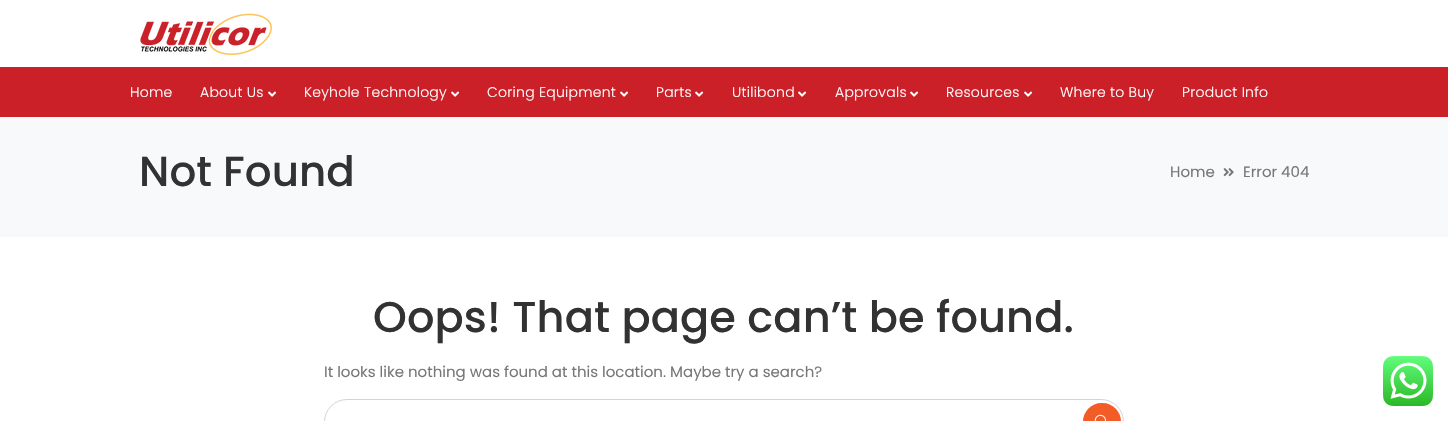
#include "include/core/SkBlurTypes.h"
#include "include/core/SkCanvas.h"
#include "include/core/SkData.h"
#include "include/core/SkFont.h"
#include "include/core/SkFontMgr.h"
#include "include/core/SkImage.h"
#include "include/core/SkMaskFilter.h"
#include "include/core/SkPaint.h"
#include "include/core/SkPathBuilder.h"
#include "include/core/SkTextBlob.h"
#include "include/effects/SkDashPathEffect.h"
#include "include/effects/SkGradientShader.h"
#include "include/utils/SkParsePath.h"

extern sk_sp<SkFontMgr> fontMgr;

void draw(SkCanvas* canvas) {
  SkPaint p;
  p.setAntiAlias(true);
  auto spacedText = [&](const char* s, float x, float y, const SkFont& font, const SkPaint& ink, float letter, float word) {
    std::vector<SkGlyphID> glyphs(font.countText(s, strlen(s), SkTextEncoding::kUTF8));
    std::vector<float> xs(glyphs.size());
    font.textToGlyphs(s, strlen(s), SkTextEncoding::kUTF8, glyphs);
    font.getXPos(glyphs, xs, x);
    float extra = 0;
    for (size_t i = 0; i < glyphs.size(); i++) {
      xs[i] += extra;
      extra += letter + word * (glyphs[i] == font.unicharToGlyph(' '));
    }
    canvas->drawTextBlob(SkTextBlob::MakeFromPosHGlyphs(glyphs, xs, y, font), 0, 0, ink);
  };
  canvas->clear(SK_ColorWHITE);
  canvas->drawImageRect(SkImages::DeferredFromEncodedData(SkData::MakeFromFileName("images/1.png")), SkRect::MakeLTRB(140, 13, 272, 56), SkSamplingOptions());
  p.setColor(SkColorSetRGB(203, 32, 40));
  canvas->drawRect(SkRect::MakeLTRB(0, 67, 1448, 117), p);
  canvas->drawImageRect(SkImages::DeferredFromEncodedData(SkData::MakeFromFileName("images/2.png")), SkRect::MakeLTRB(268, 91, 277, 97), SkSamplingOptions());
  canvas->drawImageRect(SkImages::DeferredFromEncodedData(SkData::MakeFromFileName("images/2.png")), SkRect::MakeLTRB(451, 91, 460, 97), SkSamplingOptions());
  canvas->drawImageRect(SkImages::DeferredFromEncodedData(SkData::MakeFromFileName("images/2.png")), SkRect::MakeLTRB(620, 91, 629, 97), SkSamplingOptions());
  canvas->drawImageRect(SkImages::DeferredFromEncodedData(SkData::MakeFromFileName("images/2.png")), SkRect::MakeLTRB(695, 91, 704, 97), SkSamplingOptions());
  canvas->drawImageRect(SkImages::DeferredFromEncodedData(SkData::MakeFromFileName("images/2.png")), SkRect::MakeLTRB(798, 91, 807, 97), SkSamplingOptions());
  canvas->drawImageRect(SkImages::DeferredFromEncodedData(SkData::MakeFromFileName("images/2.png")), SkRect::MakeLTRB(910, 91, 919, 97), SkSamplingOptions());
  canvas->drawImageRect(SkImages::DeferredFromEncodedData(SkData::MakeFromFileName("images/2.png")), SkRect::MakeLTRB(1024, 91, 1033, 97), SkSamplingOptions());
  p.setColor(SkColorSetRGB(247, 249, 250));
  canvas->drawRect(SkRect::MakeLTRB(0, 117, 1448, 237), p);
  canvas->drawImageRect(SkImages::DeferredFromEncodedData(SkData::MakeFromFileName("images/3.png")), SkRect::MakeLTRB(1223, 168, 1234, 177), SkSamplingOptions());
  p.setStyle(SkPaint::kStroke_Style);
  p.setStrokeWidth(1);
  p.setColor(SkColorSetRGB(212, 212, 213));
  canvas->drawRoundRect(SkRect::MakeLTRB(324.5f, 399.5f, 1123.5f, 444.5f), 22.5f, 22.5f, p);
  p.setStyle(SkPaint::kFill_Style);
  p.setColor(SkColorSetRGB(243, 92, 39));
  canvas->drawRoundRect(SkRect::MakeLTRB(1083, 403, 1121, 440), 19, 19, p);
  canvas->drawImageRect(SkImages::DeferredFromEncodedData(SkData::MakeFromFileName("images/4.png")), SkRect::MakeLTRB(1094, 414, 1106, 421), SkSamplingOptions());
  canvas->drawImageRect(SkImages::DeferredFromEncodedData(SkData::MakeFromFileName("images/5.png")), SkRect::MakeLTRB(1383, 356, 1433, 406), SkSamplingOptions());
  SkFont font1(fontMgr->matchFamilyStyle("Poppins", SkFontStyle(300, SkFontStyle::kNormal_Width, SkFontStyle::kUpright_Slant)), 14);
  font1.setSubpixel(true);
  p.setColor(SK_ColorWHITE);
  spacedText("Home", 130, 97, font1, p, 0.25f, 0);
  spacedText("About Us", 200, 97, font1, p, 0.25f, 0);
  spacedText("Keyhole Technology", 304, 97, font1, p, 0.25f, 0);
  spacedText("Coring Equipment", 487, 97, font1, p, 0.25f, 0);
  spacedText("Parts", 656, 97, font1, p, 0.25f, 0);
  spacedText("Utilibond", 732, 97, font1, p, 0.25f, 0);
  spacedText("Approvals", 835, 97, font1, p, 0.25f, 0);
  spacedText("Resources", 946, 97, font1, p, 0.25f, 0);
  spacedText("Where to Buy", 1060, 97, font1, p, 0.25f, 0);
  spacedText("Product Info", 1182, 97, font1, p, 0.25f, 0);
  SkFont font2(fontMgr->matchFamilyStyle("Poppins", SkFontStyle(500, SkFontStyle::kNormal_Width, SkFontStyle::kUpright_Slant)), 42);
  font2.setSubpixel(true);
  p.setColor(SkColorSetRGB(50, 50, 50));
  spacedText("Not Found", 139, 186, font2, p, 0.1f, 0);
  SkFont font3(fontMgr->matchFamilyStyle("Poppins", SkFontStyle::Normal()), 15);
  font3.setSubpixel(true);
  p.setColor(SkColorSetRGB(119, 119, 119));
  canvas->drawString("Home", 1170, 177, font3, p);
  canvas->drawString("Error 404", 1243, 177, font3, p);
  SkFont font4(fontMgr->matchFamilyStyle("Poppins", SkFontStyle(500, SkFontStyle::kNormal_Width, SkFontStyle::kUpright_Slant)), 43.1f);
  font4.setSubpixel(true);
  p.setColor(SkColorSetRGB(50, 50, 50));
  spacedText("Oops! That page can’t be found.", 373, 332, font4, p, 0.1f, 0);
  p.setColor(SkColorSetRGB(119, 119, 119));
  canvas->drawString("It looks like nothing was found at this location. Maybe try a search?", 324, 377, font3, p);
}
